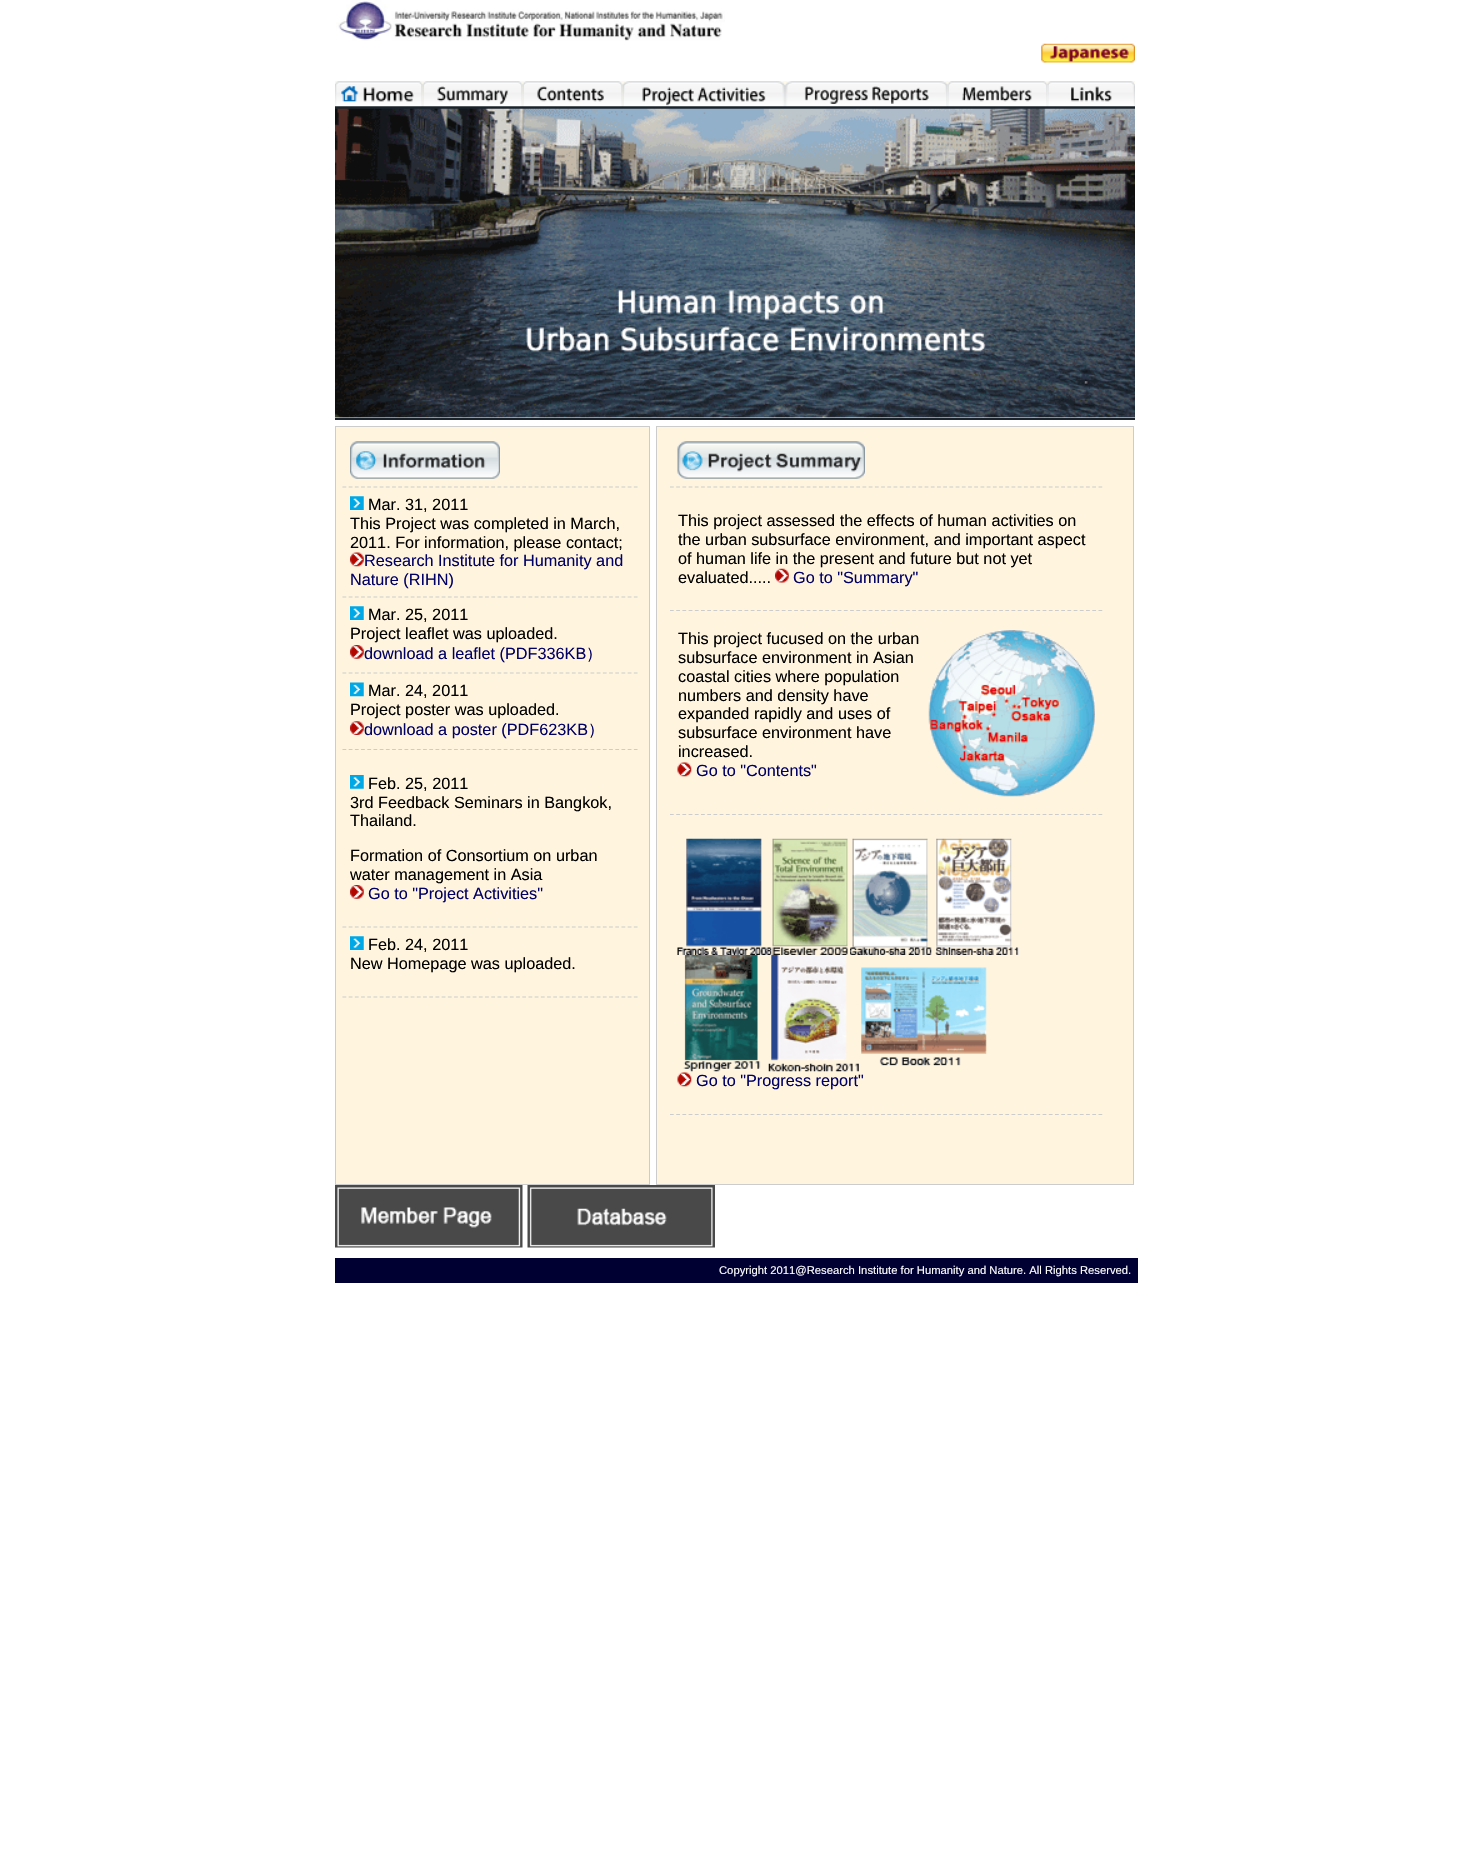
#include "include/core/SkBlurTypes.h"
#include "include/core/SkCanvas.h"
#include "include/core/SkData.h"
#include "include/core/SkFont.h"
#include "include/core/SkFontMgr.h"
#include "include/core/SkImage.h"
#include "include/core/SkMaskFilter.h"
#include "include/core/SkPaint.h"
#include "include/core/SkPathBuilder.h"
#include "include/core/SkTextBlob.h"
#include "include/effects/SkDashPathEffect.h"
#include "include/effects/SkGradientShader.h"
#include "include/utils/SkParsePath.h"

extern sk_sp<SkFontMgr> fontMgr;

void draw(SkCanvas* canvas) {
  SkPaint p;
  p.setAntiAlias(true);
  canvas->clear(SK_ColorWHITE);
  canvas->drawImageRect(SkImages::DeferredFromEncodedData(SkData::MakeFromFileName("images/1.png")), SkRect::MakeLTRB(336, 0, 725, 41), SkSamplingOptions());
  canvas->drawImageRect(SkImages::DeferredFromEncodedData(SkData::MakeFromFileName("images/2.png")), SkRect::MakeLTRB(1041, 43, 1135, 63), SkSamplingOptions());
  p.setColor(SkColorSetRGB(255, 249, 230));
  canvas->drawRect(SkRect::MakeLTRB(335, 81, 1135, 106), p);
  p.setColor(SkColorSetRGB(26, 35, 44));
  canvas->drawRect(SkRect::MakeLTRB(335, 106, 1135, 109), p);
  canvas->drawImageRect(SkImages::DeferredFromEncodedData(SkData::MakeFromFileName("images/3.png")), SkRect::MakeLTRB(335, 81, 423, 107), SkSamplingOptions());
  canvas->drawImageRect(SkImages::DeferredFromEncodedData(SkData::MakeFromFileName("images/4.png")), SkRect::MakeLTRB(422, 81, 523, 107), SkSamplingOptions());
  canvas->drawImageRect(SkImages::DeferredFromEncodedData(SkData::MakeFromFileName("images/5.png")), SkRect::MakeLTRB(522, 81, 623, 107), SkSamplingOptions());
  canvas->drawImageRect(SkImages::DeferredFromEncodedData(SkData::MakeFromFileName("images/6.png")), SkRect::MakeLTRB(622, 81, 785, 107), SkSamplingOptions());
  canvas->drawImageRect(SkImages::DeferredFromEncodedData(SkData::MakeFromFileName("images/7.png")), SkRect::MakeLTRB(785, 81, 948, 107), SkSamplingOptions());
  canvas->drawImageRect(SkImages::DeferredFromEncodedData(SkData::MakeFromFileName("images/8.png")), SkRect::MakeLTRB(947, 81, 1048, 107), SkSamplingOptions());
  canvas->drawImageRect(SkImages::DeferredFromEncodedData(SkData::MakeFromFileName("images/9.png")), SkRect::MakeLTRB(1047, 81, 1135, 107), SkSamplingOptions());
  canvas->drawRect(SkRect::MakeLTRB(335, 418, 1135, 420), p);
  canvas->drawImageRect(SkImages::DeferredFromEncodedData(SkData::MakeFromFileName("images/10.png")), SkRect::MakeLTRB(335, 108, 1135, 418), SkSamplingOptions());
  p.setColor(SkColorSetRGB(255, 244, 221));
  canvas->drawRect(SkRect::MakeLTRB(335.5f, 426.5f, 649.5f, 1184.5f), p);
  p.setStyle(SkPaint::kStroke_Style);
  p.setStrokeWidth(1);
  p.setColor(SkColorSetRGB(204, 204, 204));
  canvas->drawRect(SkRect::MakeLTRB(335.5f, 426.5f, 649.5f, 1184.5f), p);
  p.setStrokeWidth(1.2f);
  p.setPathEffect(SkDashPathEffect::Make({{3.75f, 2.45f}}, 0));
  canvas->drawPath(SkPathBuilder().moveTo(342.5f, 487).lineTo(637.5f, 487).detach(), p);
  p.setPathEffect(nullptr);
  canvas->drawImageRect(SkImages::DeferredFromEncodedData(SkData::MakeFromFileName("images/11.png")), SkRect::MakeLTRB(350, 441, 500, 479), SkSamplingOptions());
  p.setPathEffect(SkDashPathEffect::Make({{3.75f, 2.45f}}, 0));
  canvas->drawPath(SkPathBuilder().moveTo(342.5f, 597).lineTo(637.5f, 597).detach(), p);
  p.setPathEffect(nullptr);
  canvas->drawImageRect(SkImages::DeferredFromEncodedData(SkData::MakeFromFileName("images/12.png")), SkRect::MakeLTRB(350, 496, 364, 510), SkSamplingOptions());
  canvas->drawImageRect(SkImages::DeferredFromEncodedData(SkData::MakeFromFileName("images/13.png")), SkRect::MakeLTRB(350, 552, 364, 567), SkSamplingOptions());
  p.setPathEffect(SkDashPathEffect::Make({{3.75f, 2.45f}}, 0));
  canvas->drawPath(SkPathBuilder().moveTo(342.5f, 673).lineTo(637.5f, 673).detach(), p);
  p.setPathEffect(nullptr);
  canvas->drawImageRect(SkImages::DeferredFromEncodedData(SkData::MakeFromFileName("images/12.png")), SkRect::MakeLTRB(350, 606, 364, 620), SkSamplingOptions());
  canvas->drawImageRect(SkImages::DeferredFromEncodedData(SkData::MakeFromFileName("images/14.png")), SkRect::MakeLTRB(350, 645, 364, 659), SkSamplingOptions());
  p.setPathEffect(SkDashPathEffect::Make({{3.75f, 2.45f}}, 0));
  canvas->drawPath(SkPathBuilder().moveTo(342.5f, 749.5f).lineTo(637.5f, 749.5f).detach(), p);
  p.setPathEffect(nullptr);
  canvas->drawImageRect(SkImages::DeferredFromEncodedData(SkData::MakeFromFileName("images/15.png")), SkRect::MakeLTRB(350, 682, 364, 697), SkSamplingOptions());
  canvas->drawImageRect(SkImages::DeferredFromEncodedData(SkData::MakeFromFileName("images/16.png")), SkRect::MakeLTRB(350, 721, 364, 735), SkSamplingOptions());
  p.setPathEffect(SkDashPathEffect::Make({{3.75f, 2.45f}}, 0));
  canvas->drawPath(SkPathBuilder().moveTo(342.5f, 927).lineTo(637.5f, 927).detach(), p);
  p.setPathEffect(nullptr);
  canvas->drawImageRect(SkImages::DeferredFromEncodedData(SkData::MakeFromFileName("images/17.png")), SkRect::MakeLTRB(350, 775, 364, 789), SkSamplingOptions());
  canvas->drawImageRect(SkImages::DeferredFromEncodedData(SkData::MakeFromFileName("images/14.png")), SkRect::MakeLTRB(350, 885, 364, 899), SkSamplingOptions());
  p.setPathEffect(SkDashPathEffect::Make({{3.75f, 2.45f}}, 0));
  canvas->drawPath(SkPathBuilder().moveTo(342.5f, 997).lineTo(637.5f, 997).detach(), p);
  p.setPathEffect(nullptr);
  canvas->drawImageRect(SkImages::DeferredFromEncodedData(SkData::MakeFromFileName("images/12.png")), SkRect::MakeLTRB(350, 936, 364, 950), SkSamplingOptions());
  p.setStyle(SkPaint::kFill_Style);
  p.setColor(SkColorSetRGB(255, 244, 221));
  canvas->drawRect(SkRect::MakeLTRB(656.5f, 426.5f, 1133.5f, 1184.5f), p);
  p.setStyle(SkPaint::kStroke_Style);
  p.setStrokeWidth(1);
  p.setColor(SkColorSetRGB(204, 204, 204));
  canvas->drawRect(SkRect::MakeLTRB(656.5f, 426.5f, 1133.5f, 1184.5f), p);
  p.setStrokeWidth(1.2f);
  p.setPathEffect(SkDashPathEffect::Make({{3.75f, 2.46f}}, 0));
  canvas->drawPath(SkPathBuilder().moveTo(670, 487).lineTo(1102.5f, 487).detach(), p);
  p.setPathEffect(nullptr);
  canvas->drawImageRect(SkImages::DeferredFromEncodedData(SkData::MakeFromFileName("images/18.png")), SkRect::MakeLTRB(677, 441, 865, 479), SkSamplingOptions());
  p.setPathEffect(SkDashPathEffect::Make({{3.75f, 2.46f}}, 0));
  canvas->drawPath(SkPathBuilder().moveTo(670, 610.5f).lineTo(1102.5f, 610.5f).detach(), p);
  p.setPathEffect(nullptr);
  canvas->drawImageRect(SkImages::DeferredFromEncodedData(SkData::MakeFromFileName("images/19.png")), SkRect::MakeLTRB(775, 568, 789, 583), SkSamplingOptions());
  p.setPathEffect(SkDashPathEffect::Make({{3.75f, 2.46f}}, 0));
  canvas->drawPath(SkPathBuilder().moveTo(670, 814.5f).lineTo(1102.5f, 814.5f).detach(), p);
  p.setPathEffect(nullptr);
  canvas->drawImageRect(SkImages::DeferredFromEncodedData(SkData::MakeFromFileName("images/20.png")), SkRect::MakeLTRB(928, 630, 1095, 797), SkSamplingOptions());
  canvas->drawImageRect(SkImages::DeferredFromEncodedData(SkData::MakeFromFileName("images/21.png")), SkRect::MakeLTRB(677, 762, 692, 777), SkSamplingOptions());
  p.setPathEffect(SkDashPathEffect::Make({{3.75f, 2.46f}}, 0));
  canvas->drawPath(SkPathBuilder().moveTo(670, 1114.5f).lineTo(1102.5f, 1114.5f).detach(), p);
  p.setPathEffect(nullptr);
  canvas->drawImageRect(SkImages::DeferredFromEncodedData(SkData::MakeFromFileName("images/22.png")), SkRect::MakeLTRB(677, 838, 772, 955), SkSamplingOptions());
  canvas->drawImageRect(SkImages::DeferredFromEncodedData(SkData::MakeFromFileName("images/23.png")), SkRect::MakeLTRB(772, 838, 848, 955), SkSamplingOptions());
  canvas->drawImageRect(SkImages::DeferredFromEncodedData(SkData::MakeFromFileName("images/24.png")), SkRect::MakeLTRB(850, 838, 932, 955), SkSamplingOptions());
  canvas->drawImageRect(SkImages::DeferredFromEncodedData(SkData::MakeFromFileName("images/25.png")), SkRect::MakeLTRB(935, 838, 1019, 955), SkSamplingOptions());
  canvas->drawImageRect(SkImages::DeferredFromEncodedData(SkData::MakeFromFileName("images/26.png")), SkRect::MakeLTRB(683, 955, 761, 1072), SkSamplingOptions());
  canvas->drawImageRect(SkImages::DeferredFromEncodedData(SkData::MakeFromFileName("images/27.png")), SkRect::MakeLTRB(768, 955, 859, 1072), SkSamplingOptions());
  canvas->drawImageRect(SkImages::DeferredFromEncodedData(SkData::MakeFromFileName("images/28.png")), SkRect::MakeLTRB(861, 967, 987, 1066), SkSamplingOptions());
  canvas->drawImageRect(SkImages::DeferredFromEncodedData(SkData::MakeFromFileName("images/21.png")), SkRect::MakeLTRB(677, 1072, 692, 1087), SkSamplingOptions());
  canvas->drawImageRect(SkImages::DeferredFromEncodedData(SkData::MakeFromFileName("images/29.png")), SkRect::MakeLTRB(335, 1185, 523, 1248), SkSamplingOptions());
  canvas->drawImageRect(SkImages::DeferredFromEncodedData(SkData::MakeFromFileName("images/30.png")), SkRect::MakeLTRB(527, 1185, 715, 1248), SkSamplingOptions());
  p.setStyle(SkPaint::kFill_Style);
  p.setColor(SkColorSetRGB(0, 0, 51));
  canvas->drawRect(SkRect::MakeLTRB(335, 1258, 1138, 1283), p);
  SkFont font1(fontMgr->matchFamilyStyle("Liberation Sans", SkFontStyle::Normal()), 16.25f);
  font1.setSubpixel(true);
  p.setColor(SK_ColorBLACK);
  canvas->drawString("Mar. 31, 2011", 368, 510, font1, p);
  canvas->drawString("This Project was completed in March,", 350, 529, font1, p);
  canvas->drawString("2011. For information, please contact;", 350, 548, font1, p);
  p.setColor(SkColorSetRGB(0, 0, 102));
  canvas->drawString("Research Institute for Humanity and", 364, 566, font1, p);
  canvas->drawString("Nature (RIHN)", 350, 585, font1, p);
  p.setColor(SK_ColorBLACK);
  canvas->drawString("Mar. 25, 2011", 368, 620, font1, p);
  canvas->drawString("Project leaflet was uploaded.", 350, 639, font1, p);
  p.setColor(SkColorSetRGB(0, 0, 102));
  canvas->drawString("download a leaflet (PDF336KB", 364, 659, font1, p);
  SkFont font2(fontMgr->matchFamilyStyle("WenQuanYi Zen Hei", SkFontStyle(500, SkFontStyle::kNormal_Width, SkFontStyle::kUpright_Slant)), 16.25f);
  font2.setSubpixel(true);
  canvas->drawString("）", 586, 659, font2, p);
  p.setColor(SK_ColorBLACK);
  canvas->drawString("Mar. 24, 2011", 368, 696, font1, p);
  canvas->drawString("Project poster was uploaded.", 350, 715, font1, p);
  p.setColor(SkColorSetRGB(0, 0, 102));
  canvas->drawString("download a poster (PDF623KB", 364, 735, font1, p);
  canvas->drawString("）", 588, 735, font2, p);
  p.setColor(SK_ColorBLACK);
  canvas->drawString("Feb. 25, 2011", 368, 789, font1, p);
  canvas->drawString("3rd Feedback Seminars in Bangkok,", 350, 808, font1, p);
  canvas->drawString("Thailand.", 350, 826, font1, p);
  canvas->drawString("Formation of Consortium on urban", 350, 861, font1, p);
  canvas->drawString("water management in Asia", 350, 880, font1, p);
  p.setColor(SkColorSetRGB(0, 0, 102));
  canvas->drawString("Go to \"Project Activities\"", 368, 899, font1, p);
  p.setColor(SK_ColorBLACK);
  canvas->drawString("Feb. 24, 2011", 368, 950, font1, p);
  canvas->drawString("New Homepage was uploaded.", 350, 969, font1, p);
  canvas->drawString("This project assessed the effects of human activities on", 678, 526, font1, p);
  canvas->drawString("the urban subsurface environment, and important aspect", 678, 545, font1, p);
  canvas->drawString("of human life in the present and future but not yet", 678, 564, font1, p);
  canvas->drawString("evaluated.....", 678, 583, font1, p);
  p.setColor(SkColorSetRGB(0, 0, 102));
  canvas->drawString("Go to \"Summary\"", 793, 583, font1, p);
  p.setColor(SK_ColorBLACK);
  canvas->drawString("This project fucused on the urban", 678, 644, font1, p);
  canvas->drawString("subsurface environment in Asian", 678, 663, font1, p);
  canvas->drawString("coastal cities where population", 678, 682, font1, p);
  canvas->drawString("numbers and density have", 678, 701, font1, p);
  canvas->drawString("expanded rapidly and uses of", 678, 719, font1, p);
  canvas->drawString("subsurface environment have", 678, 738, font1, p);
  canvas->drawString("increased.", 678, 757, font1, p);
  p.setColor(SkColorSetRGB(0, 0, 102));
  canvas->drawString("Go to \"Contents\"", 696, 776, font1, p);
  canvas->drawString("Go to \"Progress report\"", 696, 1086, font1, p);
  SkFont font3(fontMgr->matchFamilyStyle("Liberation Sans", SkFontStyle::Normal()), 11.25f);
  font3.setSubpixel(true);
  p.setColor(SK_ColorWHITE);
  canvas->drawString("Copyright 2011@Research Institute for Humanity and Nature. All Rights Reserved.", 719, 1274, font3, p);
}
